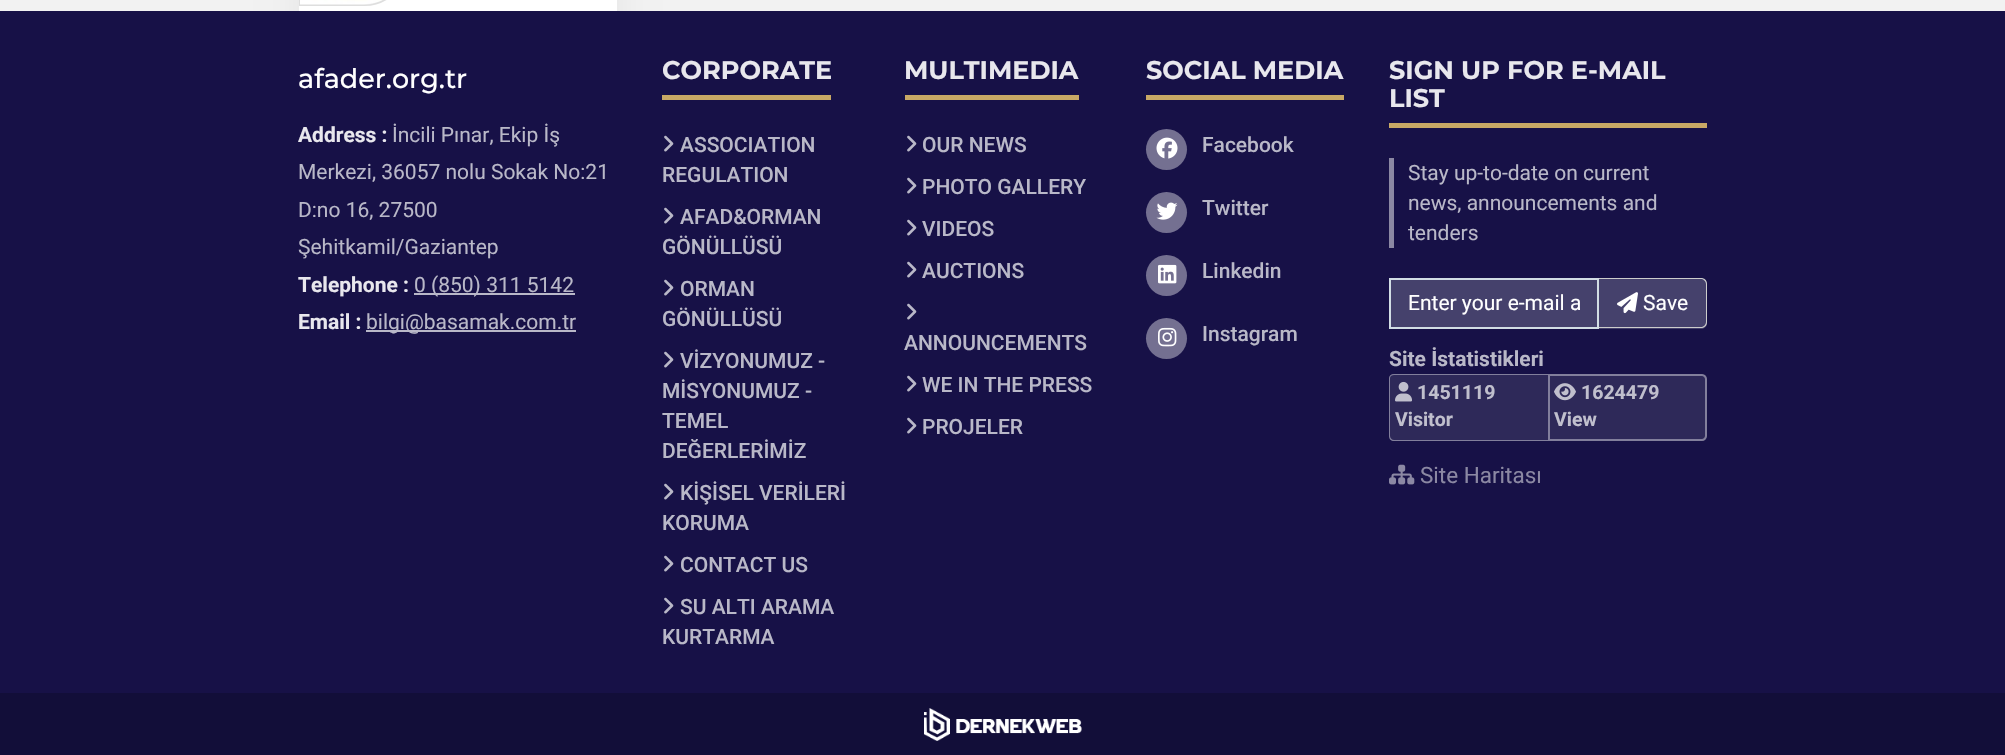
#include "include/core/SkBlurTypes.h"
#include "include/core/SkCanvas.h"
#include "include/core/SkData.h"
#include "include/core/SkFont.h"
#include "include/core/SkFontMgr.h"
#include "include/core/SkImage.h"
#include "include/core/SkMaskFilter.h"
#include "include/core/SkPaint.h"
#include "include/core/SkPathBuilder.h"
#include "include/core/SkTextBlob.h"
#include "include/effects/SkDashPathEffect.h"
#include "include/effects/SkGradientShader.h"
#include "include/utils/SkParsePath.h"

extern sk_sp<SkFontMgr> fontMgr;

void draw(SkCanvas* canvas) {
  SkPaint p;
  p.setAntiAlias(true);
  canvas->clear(SkColorSetRGB(242, 242, 242));
  p.setColor(SkColorSetARGB(13, 0, 0, 0));
  p.setMaskFilter(SkMaskFilter::MakeBlur(kNormal_SkBlurStyle, 19));
  canvas->drawRoundRect(SkRect::MakeLTRB(299, -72, 617, 126), 15, 15, p);
  p.setMaskFilter(nullptr);
  p.setColor(SK_ColorWHITE);
  canvas->drawRect(SkRect::MakeLTRB(299, 0, 617, 11), p);
  p.setStyle(SkPaint::kStroke_Style);
  p.setStrokeWidth(2);
  p.setColor(SkColorSetRGB(222, 222, 222));
  canvas->drawPath(SkPathBuilder().moveTo(300, -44).lineTo(364.5f, -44).cubicTo(387.5f, -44, 406, -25.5f, 406, -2.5f).lineTo(406, -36.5f).cubicTo(406, -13.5f, 387.5f, 5, 364.5f, 5).lineTo(300, 5).close().detach(), p);
  canvas->drawImageRect(SkImages::DeferredFromEncodedData(SkData::MakeFromFileName("images/1.png")), SkRect::MakeLTRB(300, 0, 383, 5), SkSamplingOptions());
  p.setStyle(SkPaint::kFill_Style);
  p.setColor(SkColorSetRGB(23, 17, 71));
  canvas->drawRect(SkRect::MakeLTRB(0, 11, 2005, 693), p);
  p.setColor(SkColorSetRGB(185, 184, 200));
  canvas->drawRect(SkRect::MakeLTRB(414, 293, 575, 295), p);
  canvas->drawRect(SkRect::MakeLTRB(366, 330, 576, 332), p);
  p.setColor(SkColorSetRGB(200, 168, 101));
  canvas->drawRect(SkRect::MakeLTRB(662, 95, 831, 100), p);
  canvas->drawImageRect(SkImages::DeferredFromEncodedData(SkData::MakeFromFileName("images/2.png")), SkRect::MakeLTRB(664, 135, 674, 152), SkSamplingOptions());
  canvas->drawImageRect(SkImages::DeferredFromEncodedData(SkData::MakeFromFileName("images/2.png")), SkRect::MakeLTRB(664, 207, 674, 224), SkSamplingOptions());
  canvas->drawImageRect(SkImages::DeferredFromEncodedData(SkData::MakeFromFileName("images/2.png")), SkRect::MakeLTRB(664, 279, 674, 296), SkSamplingOptions());
  canvas->drawImageRect(SkImages::DeferredFromEncodedData(SkData::MakeFromFileName("images/2.png")), SkRect::MakeLTRB(664, 351, 674, 368), SkSamplingOptions());
  canvas->drawImageRect(SkImages::DeferredFromEncodedData(SkData::MakeFromFileName("images/2.png")), SkRect::MakeLTRB(664, 483, 674, 500), SkSamplingOptions());
  canvas->drawImageRect(SkImages::DeferredFromEncodedData(SkData::MakeFromFileName("images/2.png")), SkRect::MakeLTRB(664, 555, 674, 572), SkSamplingOptions());
  canvas->drawImageRect(SkImages::DeferredFromEncodedData(SkData::MakeFromFileName("images/2.png")), SkRect::MakeLTRB(664, 597, 674, 614), SkSamplingOptions());
  canvas->drawRect(SkRect::MakeLTRB(905, 95, 1079, 100), p);
  canvas->drawImageRect(SkImages::DeferredFromEncodedData(SkData::MakeFromFileName("images/2.png")), SkRect::MakeLTRB(907, 135, 917, 152), SkSamplingOptions());
  canvas->drawImageRect(SkImages::DeferredFromEncodedData(SkData::MakeFromFileName("images/2.png")), SkRect::MakeLTRB(907, 177, 917, 194), SkSamplingOptions());
  canvas->drawImageRect(SkImages::DeferredFromEncodedData(SkData::MakeFromFileName("images/2.png")), SkRect::MakeLTRB(907, 219, 917, 236), SkSamplingOptions());
  canvas->drawImageRect(SkImages::DeferredFromEncodedData(SkData::MakeFromFileName("images/2.png")), SkRect::MakeLTRB(907, 261, 917, 278), SkSamplingOptions());
  canvas->drawImageRect(SkImages::DeferredFromEncodedData(SkData::MakeFromFileName("images/2.png")), SkRect::MakeLTRB(907, 303, 917, 320), SkSamplingOptions());
  canvas->drawImageRect(SkImages::DeferredFromEncodedData(SkData::MakeFromFileName("images/2.png")), SkRect::MakeLTRB(907, 375, 917, 392), SkSamplingOptions());
  canvas->drawImageRect(SkImages::DeferredFromEncodedData(SkData::MakeFromFileName("images/2.png")), SkRect::MakeLTRB(907, 417, 917, 434), SkSamplingOptions());
  canvas->drawRect(SkRect::MakeLTRB(1146, 95, 1344, 100), p);
  p.setColor(SkColorSetRGB(116, 112, 145));
  canvas->drawCircle(1166.5f, 149.5f, 20.5f, p);
  canvas->drawImageRect(SkImages::DeferredFromEncodedData(SkData::MakeFromFileName("images/3.png")), SkRect::MakeLTRB(1156, 137, 1178, 159), SkSamplingOptions());
  canvas->drawCircle(1166.5f, 212.5f, 20.5f, p);
  canvas->drawImageRect(SkImages::DeferredFromEncodedData(SkData::MakeFromFileName("images/4.png")), SkRect::MakeLTRB(1156, 202, 1178, 220), SkSamplingOptions());
  canvas->drawCircle(1166.5f, 275.5f, 20.5f, p);
  canvas->drawImageRect(SkImages::DeferredFromEncodedData(SkData::MakeFromFileName("images/5.png")), SkRect::MakeLTRB(1158, 264, 1177, 284), SkSamplingOptions());
  canvas->drawCircle(1166.5f, 338.5f, 20.5f, p);
  canvas->drawImageRect(SkImages::DeferredFromEncodedData(SkData::MakeFromFileName("images/6.png")), SkRect::MakeLTRB(1158, 327, 1177, 347), SkSamplingOptions());
  p.setColor(SkColorSetRGB(200, 168, 101));
  canvas->drawRect(SkRect::MakeLTRB(1389, 123, 1707, 128), p);
  p.setColor(SkColorSetRGB(139, 136, 163));
  canvas->drawRect(SkRect::MakeLTRB(1389, 158, 1394, 248), p);
  p.setColor(SkColorSetRGB(69, 65, 108));
  canvas->drawRect(SkRect::MakeLTRB(1390, 279, 1598, 328), p);
  p.setStyle(SkPaint::kStroke_Style);
  p.setColor(SkColorSetRGB(210, 221, 228));
  canvas->drawRect(SkRect::MakeLTRB(1390, 279, 1598, 328), p);
  p.setStyle(SkPaint::kFill_Style);
  p.setColor(SkColorSetRGB(69, 65, 108));
  canvas->drawPath(SkPathBuilder().moveTo(1599, 278).lineTo(1701, 278).cubicTo(1704.5f, 278, 1707, 280.5f, 1707, 284).lineTo(1707, 323).cubicTo(1707, 326.5f, 1704.5f, 329, 1701, 329).lineTo(1599, 329).close().detach(), p);
  p.setColor(SkColorSetRGB(204, 204, 204));
  canvas->drawPath(SkPathBuilder(SkPathFillType::kEvenOdd).moveTo(1599, 278).lineTo(1701, 278).cubicTo(1704, 278, 1707, 280, 1707, 284).lineTo(1707, 322).cubicTo(1707, 326, 1704, 328, 1701, 328).lineTo(1599, 328).close().moveTo(1599, 279).lineTo(1701, 279).cubicTo(1703, 279, 1706, 281, 1706, 284).lineTo(1706, 322).cubicTo(1706, 325, 1703, 327, 1701, 327).lineTo(1599, 327).close().detach(), p);
  canvas->drawImageRect(SkImages::DeferredFromEncodedData(SkData::MakeFromFileName("images/7.png")), SkRect::MakeLTRB(1617, 292, 1638, 314), SkSamplingOptions());
  p.setColor(SkColorSetRGB(46, 41, 89));
  canvas->drawPath(SkPathBuilder().moveTo(1394, 374).lineTo(1548, 374).lineTo(1548, 441).lineTo(1394, 441).cubicTo(1391, 441, 1389, 439, 1389, 436).lineTo(1389, 379).cubicTo(1389, 376, 1391, 374, 1394, 374).close().detach(), p);
  p.setColor(SkColorSetARGB(102, 255, 255, 255));
  canvas->drawPath(SkPathBuilder(SkPathFillType::kEvenOdd).moveTo(1394, 374).lineTo(1548, 374).lineTo(1548, 441).lineTo(1394, 441).cubicTo(1391, 441, 1389, 439, 1389, 436).lineTo(1389, 378).cubicTo(1389, 376, 1391, 374, 1394, 374).close().moveTo(1394, 375).lineTo(1548, 375).lineTo(1548, 440).lineTo(1394, 440).cubicTo(1392, 440, 1390, 438, 1390, 436).lineTo(1390, 378).cubicTo(1390, 376, 1392, 375, 1394, 375).close().detach(), p);
  canvas->drawImageRect(SkImages::DeferredFromEncodedData(SkData::MakeFromFileName("images/8.png")), SkRect::MakeLTRB(1395, 381, 1412, 402), SkSamplingOptions());
  p.setColor(SkColorSetRGB(46, 41, 89));
  canvas->drawPath(SkPathBuilder().moveTo(1548, 374).lineTo(1702, 374).cubicTo(1705, 374, 1707, 376, 1707, 379).lineTo(1707, 436).cubicTo(1707, 439, 1705, 441, 1702, 441).lineTo(1548, 441).close().detach(), p);
  p.setStyle(SkPaint::kStroke_Style);
  p.setColor(SkColorSetARGB(102, 255, 255, 255));
  canvas->drawPath(SkPathBuilder().moveTo(1549, 375).lineTo(1702, 375).cubicTo(1704, 375, 1706, 377, 1706, 379).lineTo(1706, 436).cubicTo(1706, 438, 1704, 440, 1702, 440).lineTo(1549, 440).close().detach(), p);
  canvas->drawImageRect(SkImages::DeferredFromEncodedData(SkData::MakeFromFileName("images/9.png")), SkRect::MakeLTRB(1554, 383, 1576, 401), SkSamplingOptions());
  canvas->drawImageRect(SkImages::DeferredFromEncodedData(SkData::MakeFromFileName("images/10.png")), SkRect::MakeLTRB(1389, 464, 1415, 485), SkSamplingOptions());
  p.setStyle(SkPaint::kFill_Style);
  p.setColor(SkColorSetRGB(18, 14, 57));
  canvas->drawRect(SkRect::MakeLTRB(0, 693, 2005, 755), p);
  canvas->drawImageRect(SkImages::DeferredFromEncodedData(SkData::MakeFromFileName("images/11.png")), SkRect::MakeLTRB(924, 708, 1082, 741), SkSamplingOptions());
  SkFont font1(fontMgr->matchFamilyStyle("Montserrat", SkFontStyle(500, SkFontStyle::kNormal_Width, SkFontStyle::kUpright_Slant)), 27);
  font1.setSubpixel(true);
  p.setColor(SK_ColorWHITE);
  canvas->drawString("afader.org.tr", 298, 88, font1, p);
  SkFont font2(fontMgr->matchFamilyStyle("Roboto", SkFontStyle::Bold()), 21);
  font2.setSubpixel(true);
  p.setColor(SkColorSetRGB(232, 231, 237));
  canvas->drawString("Address :", 298, 142, font2, p);
  SkFont font3(fontMgr->matchFamilyStyle("Roboto", SkFontStyle::Normal()), 21);
  font3.setSubpixel(true);
  p.setColor(SkColorSetRGB(185, 184, 200));
  canvas->drawString("İncili Pınar, Ekip İş", 392, 142, font3, p);
  canvas->drawString("Merkezi, 36057 nolu Sokak No:21", 298, 179, font3, p);
  canvas->drawString("D:no 16, 27500", 298, 217, font3, p);
  canvas->drawString("Şehitkamil/Gaziantep", 298, 254, font3, p);
  p.setColor(SkColorSetRGB(232, 231, 237));
  canvas->drawString("Telephone :", 298, 292, font2, p);
  p.setColor(SkColorSetRGB(185, 184, 200));
  canvas->drawString("0 (850) 311 5142", 414, 292, font3, p);
  p.setColor(SkColorSetRGB(232, 231, 237));
  canvas->drawString("Email :", 298, 329, font2, p);
  p.setColor(SkColorSetRGB(185, 184, 200));
  canvas->drawString("bilgi@basamak.com.tr", 366, 329, font3, p);
  SkFont font4(fontMgr->matchFamilyStyle("Montserrat", SkFontStyle::Bold()), 25.5f);
  font4.setSubpixel(true);
  p.setColor(SkColorSetRGB(232, 231, 237));
  canvas->drawString("CORPORATE", 662, 79, font4, p);
  SkFont font5(fontMgr->matchFamilyStyle("Roboto", SkFontStyle(500, SkFontStyle::kNormal_Width, SkFontStyle::kUpright_Slant)), 21);
  font5.setSubpixel(true);
  p.setColor(SkColorSetRGB(185, 184, 200));
  canvas->drawString("ASSOCIATION", 680, 152, font5, p);
  canvas->drawString("REGULATION", 662, 182, font5, p);
  canvas->drawString("AFAD&ORMAN", 680, 224, font5, p);
  canvas->drawString("GÖNÜLLÜSÜ", 662, 254, font5, p);
  canvas->drawString("ORMAN", 680, 296, font5, p);
  canvas->drawString("GÖNÜLLÜSÜ", 662, 326, font5, p);
  canvas->drawString("VİZYONUMUZ -", 680, 368, font5, p);
  canvas->drawString("MİSYONUMUZ -", 662, 398, font5, p);
  canvas->drawString("TEMEL", 662, 428, font5, p);
  canvas->drawString("DEĞERLERİMİZ", 662, 458, font5, p);
  canvas->drawString("KİŞİSEL VERİLERİ", 680, 500, font5, p);
  canvas->drawString("KORUMA", 662, 530, font5, p);
  canvas->drawString("CONTACT US", 680, 572, font5, p);
  canvas->drawString("SU ALTI ARAMA", 680, 614, font5, p);
  canvas->drawString("KURTARMA", 662, 644, font5, p);
  p.setColor(SkColorSetRGB(232, 231, 237));
  canvas->drawString("MULTIMEDIA", 904, 79, font4, p);
  p.setColor(SkColorSetRGB(185, 184, 200));
  canvas->drawString("OUR NEWS", 922, 152, font5, p);
  canvas->drawString("PHOTO GALLERY", 922, 194, font5, p);
  canvas->drawString("VIDEOS", 922, 236, font5, p);
  canvas->drawString("AUCTIONS", 922, 278, font5, p);
  canvas->drawString("ANNOUNCEMENTS", 904, 350, font5, p);
  canvas->drawString("WE IN THE PRESS", 922, 392, font5, p);
  canvas->drawString("PROJELER", 922, 434, font5, p);
  p.setColor(SkColorSetRGB(232, 231, 237));
  canvas->drawString("SOCIAL MEDIA", 1146, 79, font4, p);
  p.setColor(SkColorSetRGB(185, 184, 200));
  canvas->drawString("Facebook", 1202, 152, font5, p);
  canvas->drawString("Twitter", 1202, 215, font5, p);
  canvas->drawString("Linkedin", 1202, 278, font5, p);
  canvas->drawString("Instagram", 1202, 341, font5, p);
  p.setColor(SkColorSetRGB(232, 231, 237));
  canvas->drawString("SIGN UP FOR E-MAIL", 1389, 79, font4, p);
  canvas->drawString("LIST", 1389, 107, font4, p);
  p.setColor(SkColorSetRGB(185, 184, 200));
  canvas->drawString("Stay up-to-date on current", 1408, 180, font3, p);
  canvas->drawString("news, announcements and", 1408, 210, font3, p);
  canvas->drawString("tenders", 1408, 240, font3, p);
  canvas->save();
  canvas->clipRect(SkRect::MakeLTRB(1409, 291, 1580, 315));
  p.setColor(SK_ColorWHITE);
  canvas->drawString("Enter your e-mail a", 1408, 310, font3, p);
  canvas->restore();
  canvas->drawString("Save", 1643, 310, font3, p);
  p.setColor(SkColorSetRGB(185, 184, 200));
  canvas->drawString("Site İstatistikleri", 1389, 366, font2, p);
  SkFont font6(fontMgr->matchFamilyStyle("Roboto", SkFontStyle::Bold()), 19.5f);
  font6.setSubpixel(true);
  p.setColor(SkColorSetRGB(192, 191, 205));
  canvas->drawString("1451119", 1417, 399, font6, p);
  canvas->drawString("Visitor", 1395, 426, font6, p);
  canvas->drawString("1624479", 1581, 399, font6, p);
  canvas->drawString("View", 1554, 426, font6, p);
  SkFont font7(fontMgr->matchFamilyStyle("Roboto", SkFontStyle::Normal()), 22.5f);
  font7.setSubpixel(true);
  p.setColor(SkColorSetRGB(139, 136, 163));
  canvas->drawString("Site Haritası", 1420, 483, font7, p);
}
